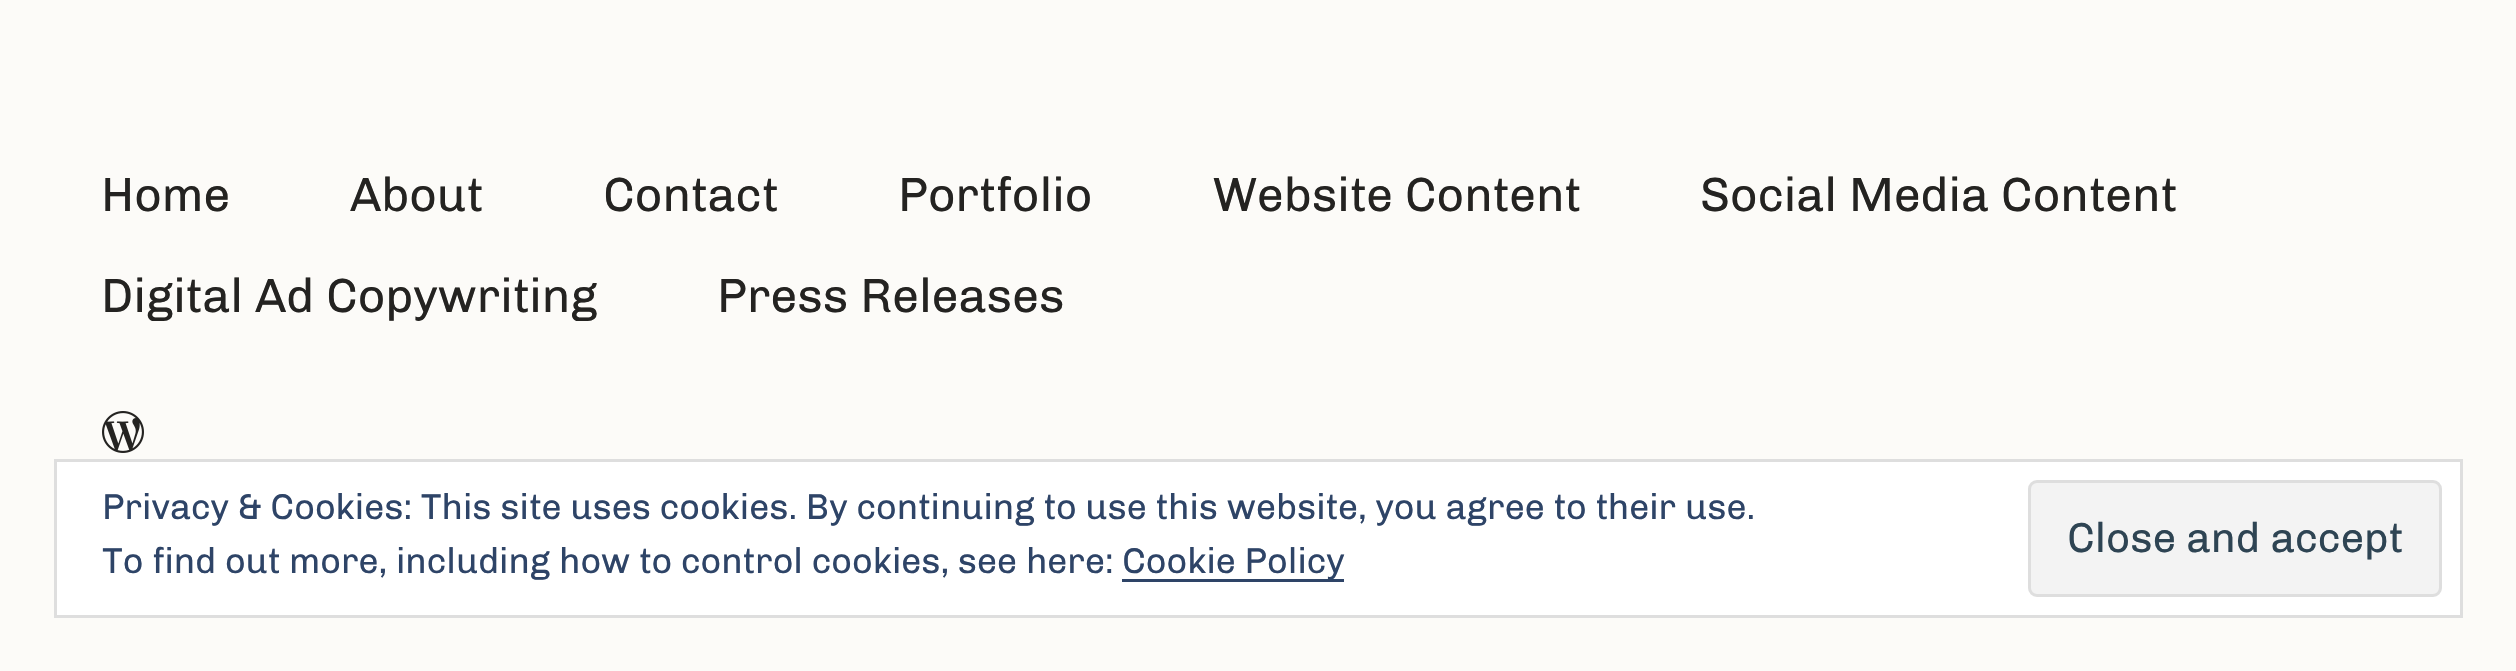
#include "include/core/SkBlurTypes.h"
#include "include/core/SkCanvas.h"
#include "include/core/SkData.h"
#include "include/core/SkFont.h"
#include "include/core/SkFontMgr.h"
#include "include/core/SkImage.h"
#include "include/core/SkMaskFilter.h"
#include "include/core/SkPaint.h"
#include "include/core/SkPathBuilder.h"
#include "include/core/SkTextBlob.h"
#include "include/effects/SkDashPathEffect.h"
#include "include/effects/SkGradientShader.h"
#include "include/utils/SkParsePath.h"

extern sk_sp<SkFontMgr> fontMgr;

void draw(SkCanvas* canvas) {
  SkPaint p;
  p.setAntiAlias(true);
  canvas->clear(SkColorSetRGB(252, 251, 248));
  canvas->drawImageRect(SkImages::DeferredFromEncodedData(SkData::MakeFromFileName("images/1.png")), SkRect::MakeLTRB(102, 411, 144, 453), SkSamplingOptions());
  p.setColor(SK_ColorWHITE);
  canvas->drawRect(SkRect::MakeLTRB(55.5f, 460.5f, 2461.5f, 616.5f), p);
  p.setStyle(SkPaint::kStroke_Style);
  p.setStrokeWidth(3);
  p.setColor(SkColorSetRGB(222, 222, 222));
  canvas->drawRect(SkRect::MakeLTRB(55.5f, 460.5f, 2461.5f, 616.5f), p);
  p.setStyle(SkPaint::kFill_Style);
  p.setColor(SkColorSetRGB(46, 68, 103));
  canvas->drawRect(SkRect::MakeLTRB(1122, 579, 1344, 582), p);
  p.setColor(SkColorSetRGB(243, 243, 243));
  canvas->drawRoundRect(SkRect::MakeLTRB(2029.5f, 481.5f, 2440.5f, 595.5f), 7.5f, 7.5f, p);
  p.setStyle(SkPaint::kStroke_Style);
  p.setColor(SkColorSetRGB(222, 222, 222));
  canvas->drawRoundRect(SkRect::MakeLTRB(2029.5f, 481.5f, 2440.5f, 595.5f), 7.5f, 7.5f, p);
  SkFont font1(fontMgr->matchFamilyStyle("Chivo", SkFontStyle::Normal()), 48);
  font1.setSubpixel(true);
  p.setStyle(SkPaint::kFill_Style);
  p.setColor(SkColorSetRGB(36, 35, 33));
  canvas->drawString("Home", 101, 211, font1, p);
  canvas->drawString("About", 350, 211, font1, p);
  canvas->drawString("Contact", 603, 211, font1, p);
  canvas->drawString("Portfolio", 898, 211, font1, p);
  canvas->drawString("Website Content", 1213, 211, font1, p);
  canvas->drawString("Social Media Content", 1700, 211, font1, p);
  canvas->drawString("Digital Ad Copywriting", 101, 312, font1, p);
  canvas->drawString("Press Releases", 717, 312, font1, p);
  SkFont font2(fontMgr->matchFamilyStyle("Chivo", SkFontStyle::Normal()), 36);
  font2.setSubpixel(true);
  p.setColor(SkColorSetRGB(46, 68, 103));
  canvas->drawString("Privacy & Cookies: This site uses cookies. By continuing to use this website, you agree to their use.", 102, 519, font2, p);
  canvas->drawString("To find out more, including how to control cookies, see here:", 102, 573, font2, p);
  canvas->drawString("Cookie Policy", 1122, 573, font2, p);
  SkFont font3(fontMgr->matchFamilyStyle("Chivo", SkFontStyle::Normal()), 42);
  font3.setSubpixel(true);
  p.setColor(SkColorSetRGB(46, 68, 83));
  canvas->drawString("Close and accept", 2067, 552, font3, p);
}
